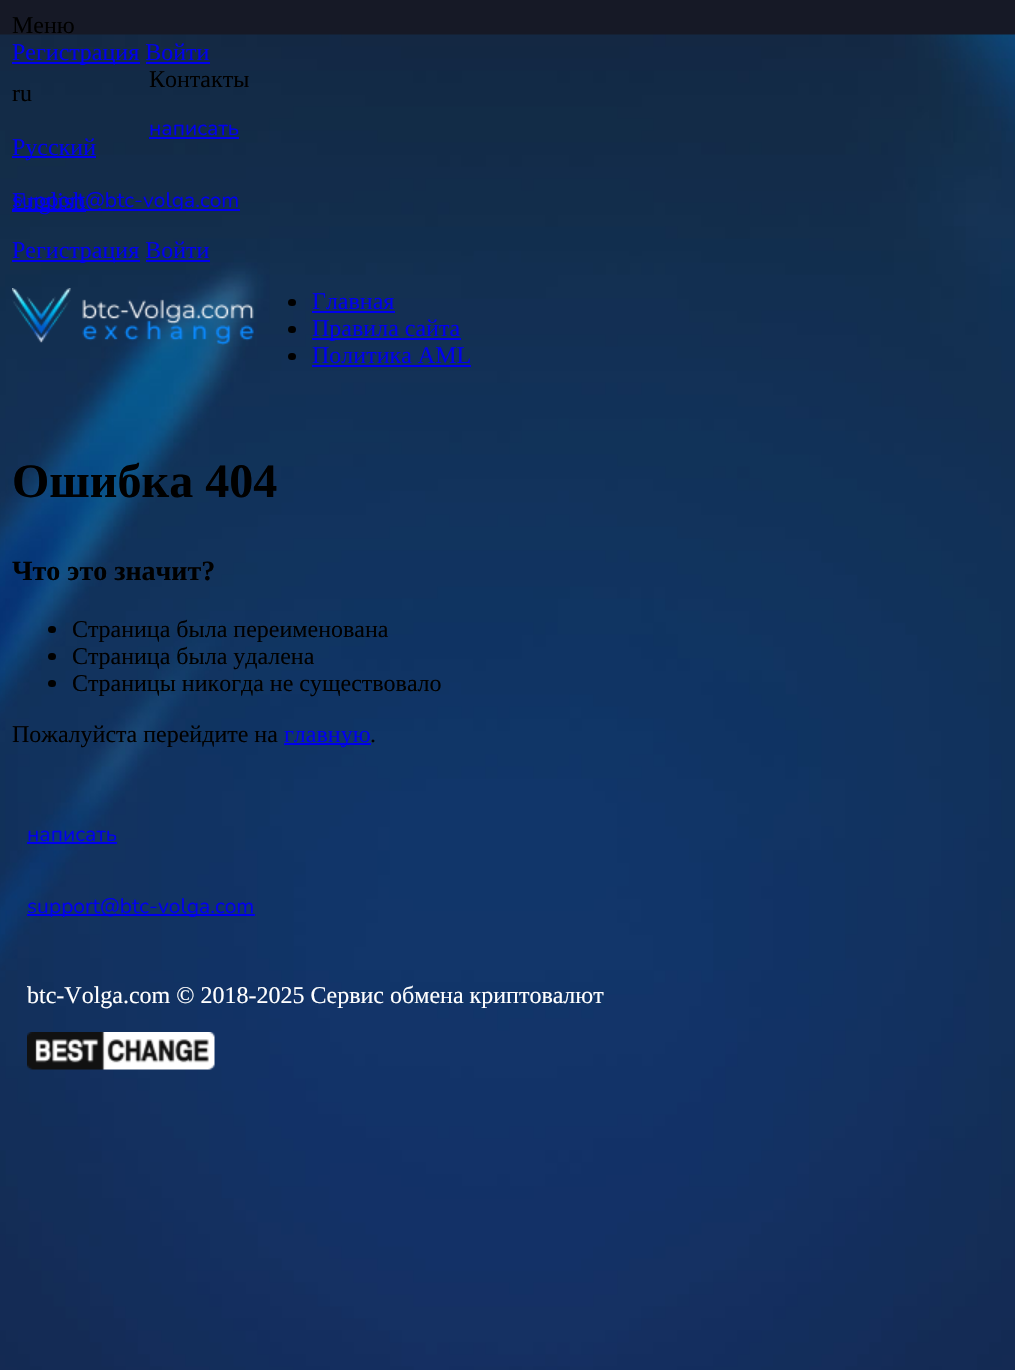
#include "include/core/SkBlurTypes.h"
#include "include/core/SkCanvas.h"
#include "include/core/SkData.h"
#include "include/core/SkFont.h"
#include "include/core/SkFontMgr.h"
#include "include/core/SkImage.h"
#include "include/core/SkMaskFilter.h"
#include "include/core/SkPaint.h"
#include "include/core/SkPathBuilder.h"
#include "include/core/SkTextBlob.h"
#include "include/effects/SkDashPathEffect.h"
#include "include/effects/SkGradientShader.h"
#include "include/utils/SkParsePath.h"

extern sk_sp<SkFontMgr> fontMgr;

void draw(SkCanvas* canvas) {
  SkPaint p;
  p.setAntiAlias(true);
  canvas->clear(SkColorSetRGB(22, 25, 38));
  canvas->drawImageRect(SkImages::DeferredFromEncodedData(SkData::MakeFromFileName("images/3.png")), SkRect::MakeLTRB(0, 34, 1015, 1370), SkSamplingOptions());
  p.setColor(SkColorSetRGB(0, 0, 238));
  canvas->drawRect(SkRect::MakeLTRB(12, 62, 140, 64), p);
  canvas->drawRect(SkRect::MakeLTRB(146, 62, 210, 64), p);
  canvas->drawRect(SkRect::MakeLTRB(149, 137, 239, 139), p);
  canvas->drawRect(SkRect::MakeLTRB(12, 209, 240, 211), p);
  canvas->drawRect(SkRect::MakeLTRB(12, 156, 96, 158), p);
  canvas->drawRect(SkRect::MakeLTRB(12, 211, 86, 212), p);
  canvas->drawRect(SkRect::MakeLTRB(12, 260, 140, 262), p);
  canvas->drawRect(SkRect::MakeLTRB(146, 260, 210, 262), p);
  canvas->drawImageRect(SkImages::DeferredFromEncodedData(SkData::MakeFromFileName("images/1.png")), SkRect::MakeLTRB(12, 288, 254, 345), SkSamplingOptions());
  p.setColor(SK_ColorBLACK);
  canvas->drawRoundRect(SkRect::MakeLTRB(288, 299, 296, 306), 3.5f, 3.5f, p);
  p.setColor(SkColorSetRGB(0, 0, 238));
  canvas->drawRect(SkRect::MakeLTRB(312, 311, 395, 313), p);
  p.setColor(SK_ColorBLACK);
  canvas->drawRoundRect(SkRect::MakeLTRB(288, 326, 296, 333), 3.5f, 3.5f, p);
  p.setColor(SkColorSetRGB(0, 0, 238));
  canvas->drawRect(SkRect::MakeLTRB(312, 338, 461, 340), p);
  p.setColor(SK_ColorBLACK);
  canvas->drawRoundRect(SkRect::MakeLTRB(288, 353, 296, 360), 3.5f, 3.5f, p);
  p.setColor(SkColorSetRGB(0, 0, 238));
  canvas->drawRect(SkRect::MakeLTRB(312, 365, 471, 367), p);
  p.setColor(SK_ColorBLACK);
  canvas->drawRoundRect(SkRect::MakeLTRB(48, 626, 56, 633), 3.5f, 3.5f, p);
  canvas->drawRoundRect(SkRect::MakeLTRB(48, 653, 56, 660), 3.5f, 3.5f, p);
  canvas->drawRoundRect(SkRect::MakeLTRB(48, 680, 56, 687), 3.5f, 3.5f, p);
  p.setColor(SkColorSetRGB(0, 0, 238));
  canvas->drawRect(SkRect::MakeLTRB(284, 743, 371, 745), p);
  canvas->drawRect(SkRect::MakeLTRB(27, 842, 117, 844), p);
  canvas->drawRect(SkRect::MakeLTRB(27, 914, 255, 916), p);
  canvas->drawImageRect(SkImages::DeferredFromEncodedData(SkData::MakeFromFileName("images/2.png")), SkRect::MakeLTRB(27, 1032, 215, 1070), SkSamplingOptions());
  SkFont font1(fontMgr->matchFamilyStyle("Liberation Serif", SkFontStyle::Normal()), 24);
  font1.setSubpixel(true);
  p.setColor(SK_ColorBLACK);
  canvas->drawString("Меню", 12, 33, font1, p);
  p.setColor(SkColorSetRGB(0, 0, 238));
  canvas->drawString("Регистрация Войти", 12, 60, font1, p);
  p.setColor(SK_ColorBLACK);
  canvas->drawString("Контакты", 149, 87, font1, p);
  SkFont font2(fontMgr->matchFamilyStyle("Nunito", SkFontStyle::Normal()), 21);
  font2.setSubpixel(true);
  p.setColor(SkColorSetRGB(0, 0, 238));
  canvas->drawString("написать", 149, 135, font2, p);
  p.setColor(SK_ColorBLACK);
  canvas->drawString("ru", 12, 101, font1, p);
  p.setColor(SkColorSetRGB(0, 0, 238));
  canvas->drawString("Русский", 12, 155, font1, p);
  canvas->drawString("English", 12, 209, font1, p);
  canvas->drawString("support@btc-volga.com", 12, 207, font2, p);
  canvas->drawString("Регистрация Войти", 12, 258, font1, p);
  canvas->drawString("Главная", 312, 309, font1, p);
  canvas->drawString("Правила сайта", 312, 336, font1, p);
  canvas->drawString("Политика AML", 312, 363, font1, p);
  SkFont font3(fontMgr->matchFamilyStyle("Liberation Serif", SkFontStyle::Bold()), 48);
  font3.setSubpixel(true);
  p.setColor(SK_ColorBLACK);
  canvas->drawString("Ошибка 404", 12, 497, font3, p);
  SkFont font4(fontMgr->matchFamilyStyle("Liberation Serif", SkFontStyle::Bold()), 28);
  font4.setSubpixel(true);
  canvas->drawString("Что это значит?", 12, 580, font4, p);
  canvas->drawString("Страница была переименована", 72, 637, font1, p);
  canvas->drawString("Страница была удалена", 72, 664, font1, p);
  canvas->drawString("Страницы никогда не существовало", 72, 691, font1, p);
  canvas->drawString("Пожалуйста перейдите на", 12, 742, font1, p);
  p.setColor(SkColorSetRGB(0, 0, 238));
  canvas->drawString("главную", 284, 742, font1, p);
  p.setColor(SK_ColorBLACK);
  canvas->drawString(".", 370, 742, font1, p);
  p.setColor(SkColorSetRGB(0, 0, 238));
  canvas->drawString("написать", 27, 841, font2, p);
  canvas->drawString("support@btc-volga.com", 27, 913, font2, p);
  p.setColor(SK_ColorWHITE);
  canvas->drawString("btc-Volga.com © 2018-2025 Сервис обмена криптовалют", 27, 1003, font1, p);
}
